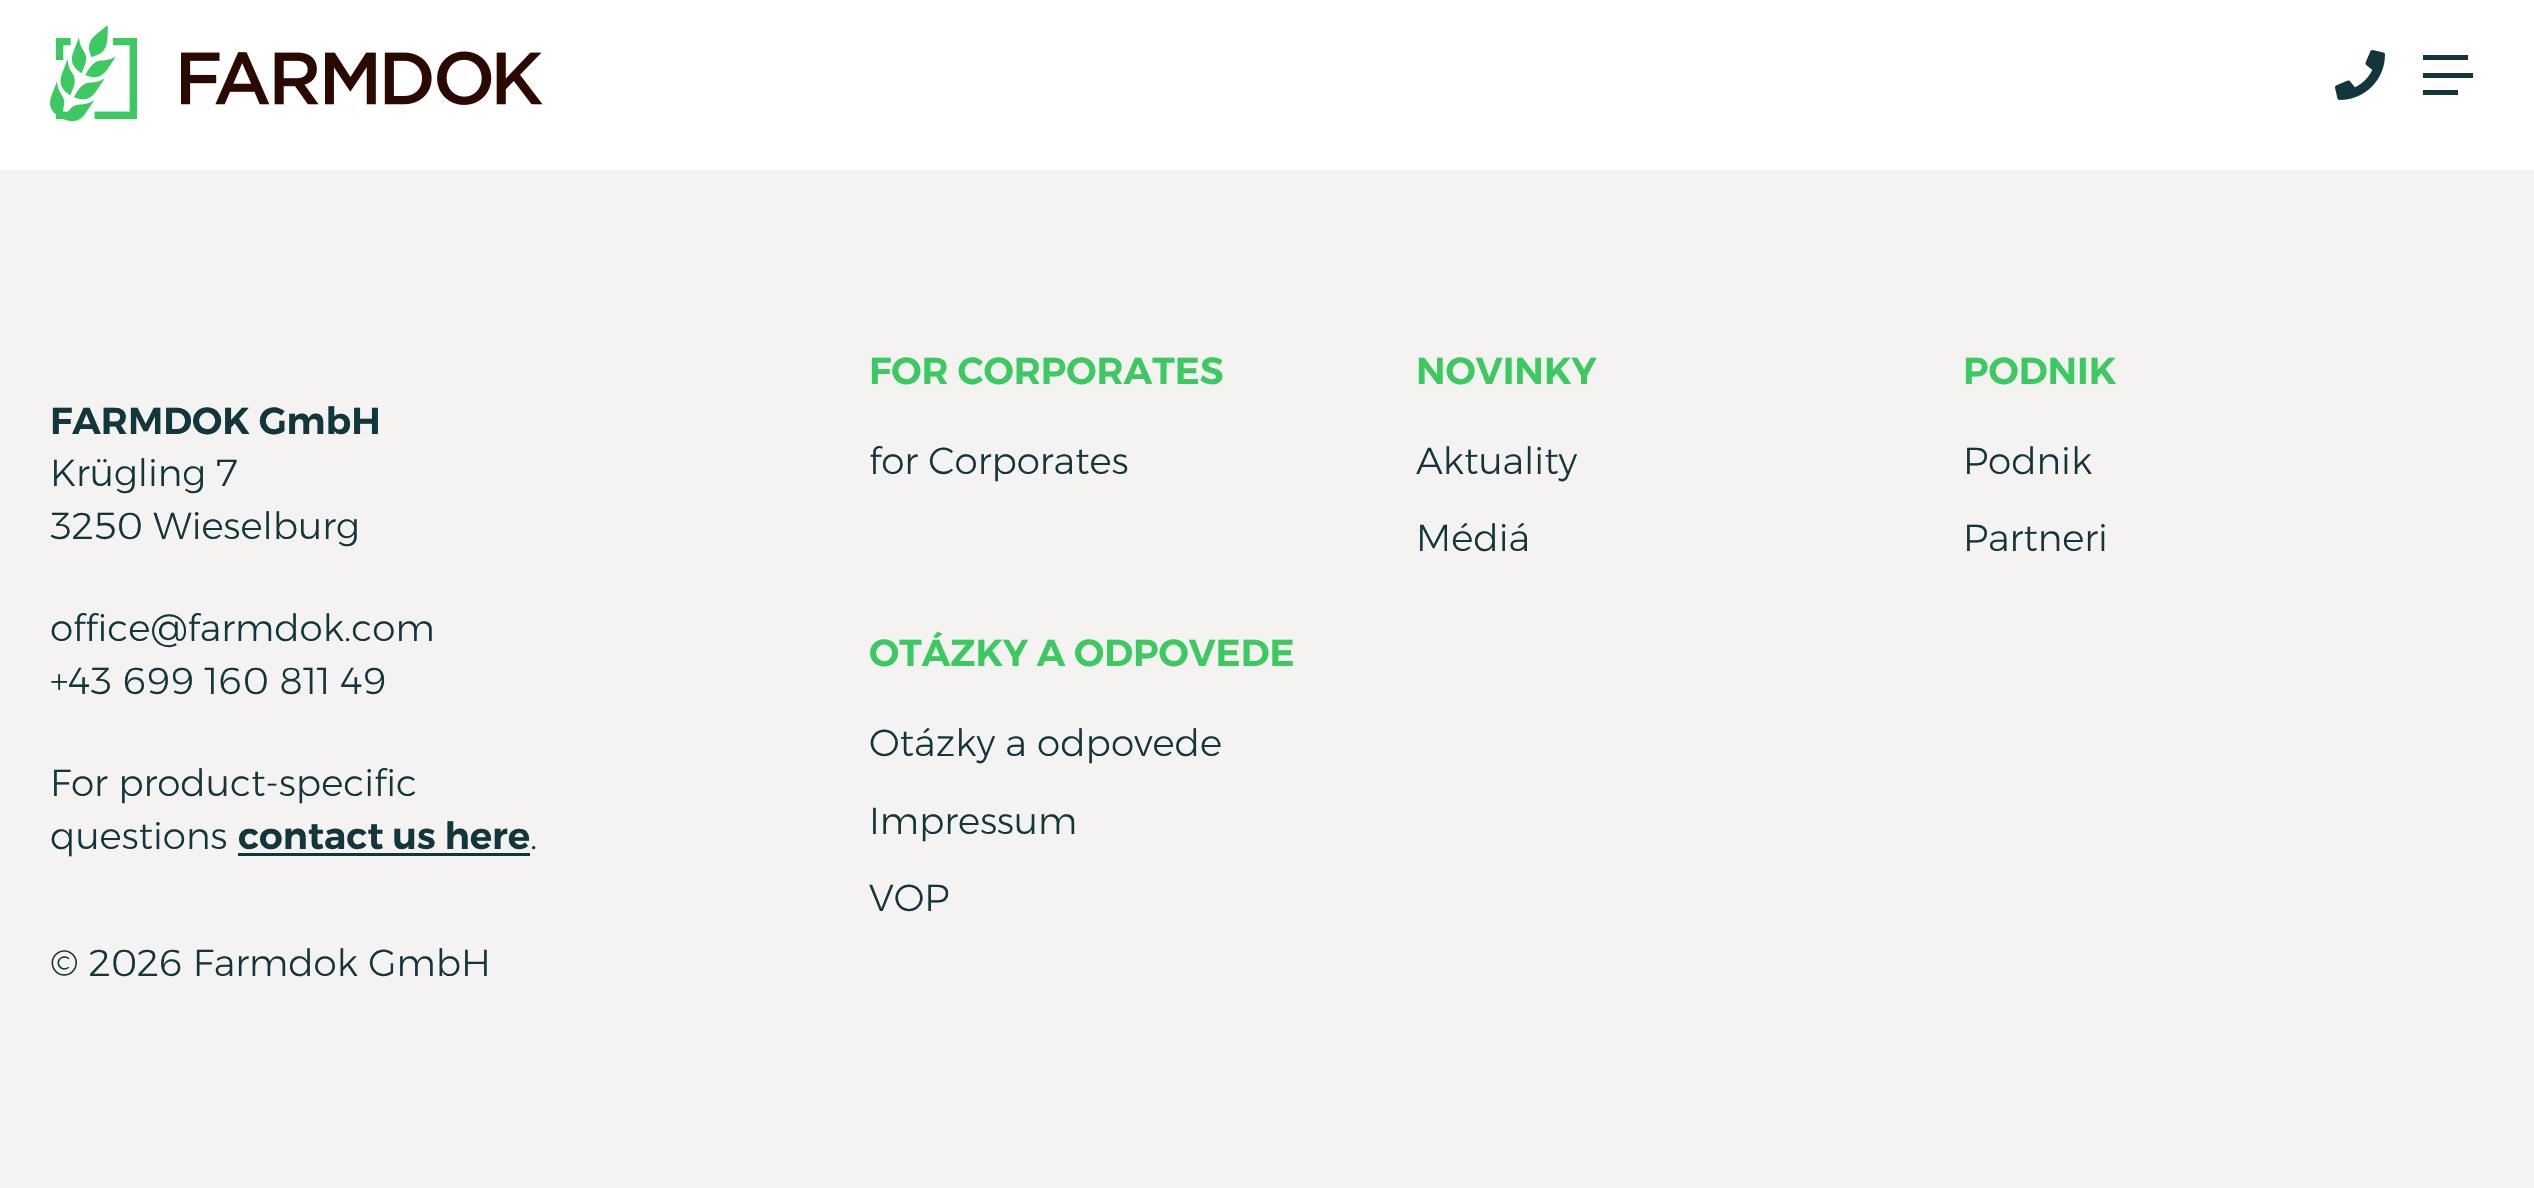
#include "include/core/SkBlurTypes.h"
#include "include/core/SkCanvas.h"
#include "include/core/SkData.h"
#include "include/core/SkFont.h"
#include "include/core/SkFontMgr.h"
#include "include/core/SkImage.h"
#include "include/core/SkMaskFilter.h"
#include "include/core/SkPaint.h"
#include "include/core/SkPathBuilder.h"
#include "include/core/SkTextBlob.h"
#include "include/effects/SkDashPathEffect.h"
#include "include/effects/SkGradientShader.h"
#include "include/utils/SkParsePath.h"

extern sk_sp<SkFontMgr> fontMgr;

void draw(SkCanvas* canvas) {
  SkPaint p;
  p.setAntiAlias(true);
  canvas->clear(SK_ColorWHITE);
  canvas->drawImageRect(SkImages::DeferredFromEncodedData(SkData::MakeFromFileName("images/1.png")), SkRect::MakeLTRB(50, 25, 543, 122), SkSamplingOptions());
  canvas->drawImageRect(SkImages::DeferredFromEncodedData(SkData::MakeFromFileName("images/2.png")), SkRect::MakeLTRB(2335, 50, 2385, 100), SkSamplingOptions());
  p.setColor(SkColorSetRGB(19, 53, 60));
  canvas->drawRect(SkRect::MakeLTRB(2423, 73, 2473, 78), p);
  canvas->drawRect(SkRect::MakeLTRB(2423, 55, 2468, 60), p);
  canvas->drawRect(SkRect::MakeLTRB(2423, 90, 2458, 95), p);
  p.setColor(SkColorSetRGB(244, 243, 241));
  canvas->drawRect(SkRect::MakeLTRB(0, 170, 2534, 1188), p);
  p.setColor(SkColorSetRGB(19, 53, 60));
  canvas->drawRect(SkRect::MakeLTRB(238, 853, 530, 856), p);
  SkFont font1(fontMgr->matchFamilyStyle("Montserrat", SkFontStyle(600, SkFontStyle::kNormal_Width, SkFontStyle::kUpright_Slant)), 37.5f);
  font1.setSubpixel(true);
  canvas->drawString("FARMDOK GmbH", 50, 434, font1, p);
  SkFont font2(fontMgr->matchFamilyStyle("Montserrat", SkFontStyle(300, SkFontStyle::kNormal_Width, SkFontStyle::kUpright_Slant)), 37.5f);
  font2.setSubpixel(true);
  canvas->drawString("Krügling 7", 50, 486, font2, p);
  canvas->drawString("3250 Wieselburg", 50, 539, font2, p);
  canvas->drawString("office@farmdok.com", 50, 641, font2, p);
  canvas->drawString("+43 699 160 811 49", 50, 694, font2, p);
  canvas->drawString("For product-specific", 50, 796, font2, p);
  canvas->drawString("questions", 50, 849, font2, p);
  canvas->drawString("contact us here", 238, 849, font1, p);
  canvas->drawString(".", 530, 849, font2, p);
  canvas->drawString("© 2026 Farmdok GmbH", 50, 976, font2, p);
  p.setColor(SkColorSetRGB(60, 201, 97));
  canvas->drawString("FOR CORPORATES", 869, 384, font1, p);
  p.setColor(SkColorSetRGB(19, 53, 60));
  canvas->drawString("for Corporates", 869, 474, font2, p);
  p.setColor(SkColorSetRGB(60, 201, 97));
  canvas->drawString("NOVINKY", 1416, 384, font1, p);
  p.setColor(SkColorSetRGB(19, 53, 60));
  canvas->drawString("Aktuality", 1416, 474, font2, p);
  canvas->drawString("Médiá", 1416, 551, font2, p);
  p.setColor(SkColorSetRGB(60, 201, 97));
  canvas->drawString("PODNIK", 1963, 384, font1, p);
  p.setColor(SkColorSetRGB(19, 53, 60));
  canvas->drawString("Podnik", 1963, 474, font2, p);
  canvas->drawString("Partneri", 1963, 551, font2, p);
  p.setColor(SkColorSetRGB(60, 201, 97));
  canvas->drawString("OTÁZKY A ODPOVEDE", 869, 666, font1, p);
  p.setColor(SkColorSetRGB(19, 53, 60));
  canvas->drawString("Otázky a odpovede", 869, 756, font2, p);
  canvas->drawString("Impressum", 869, 834, font2, p);
  canvas->drawString("VOP", 869, 911, font2, p);
}
